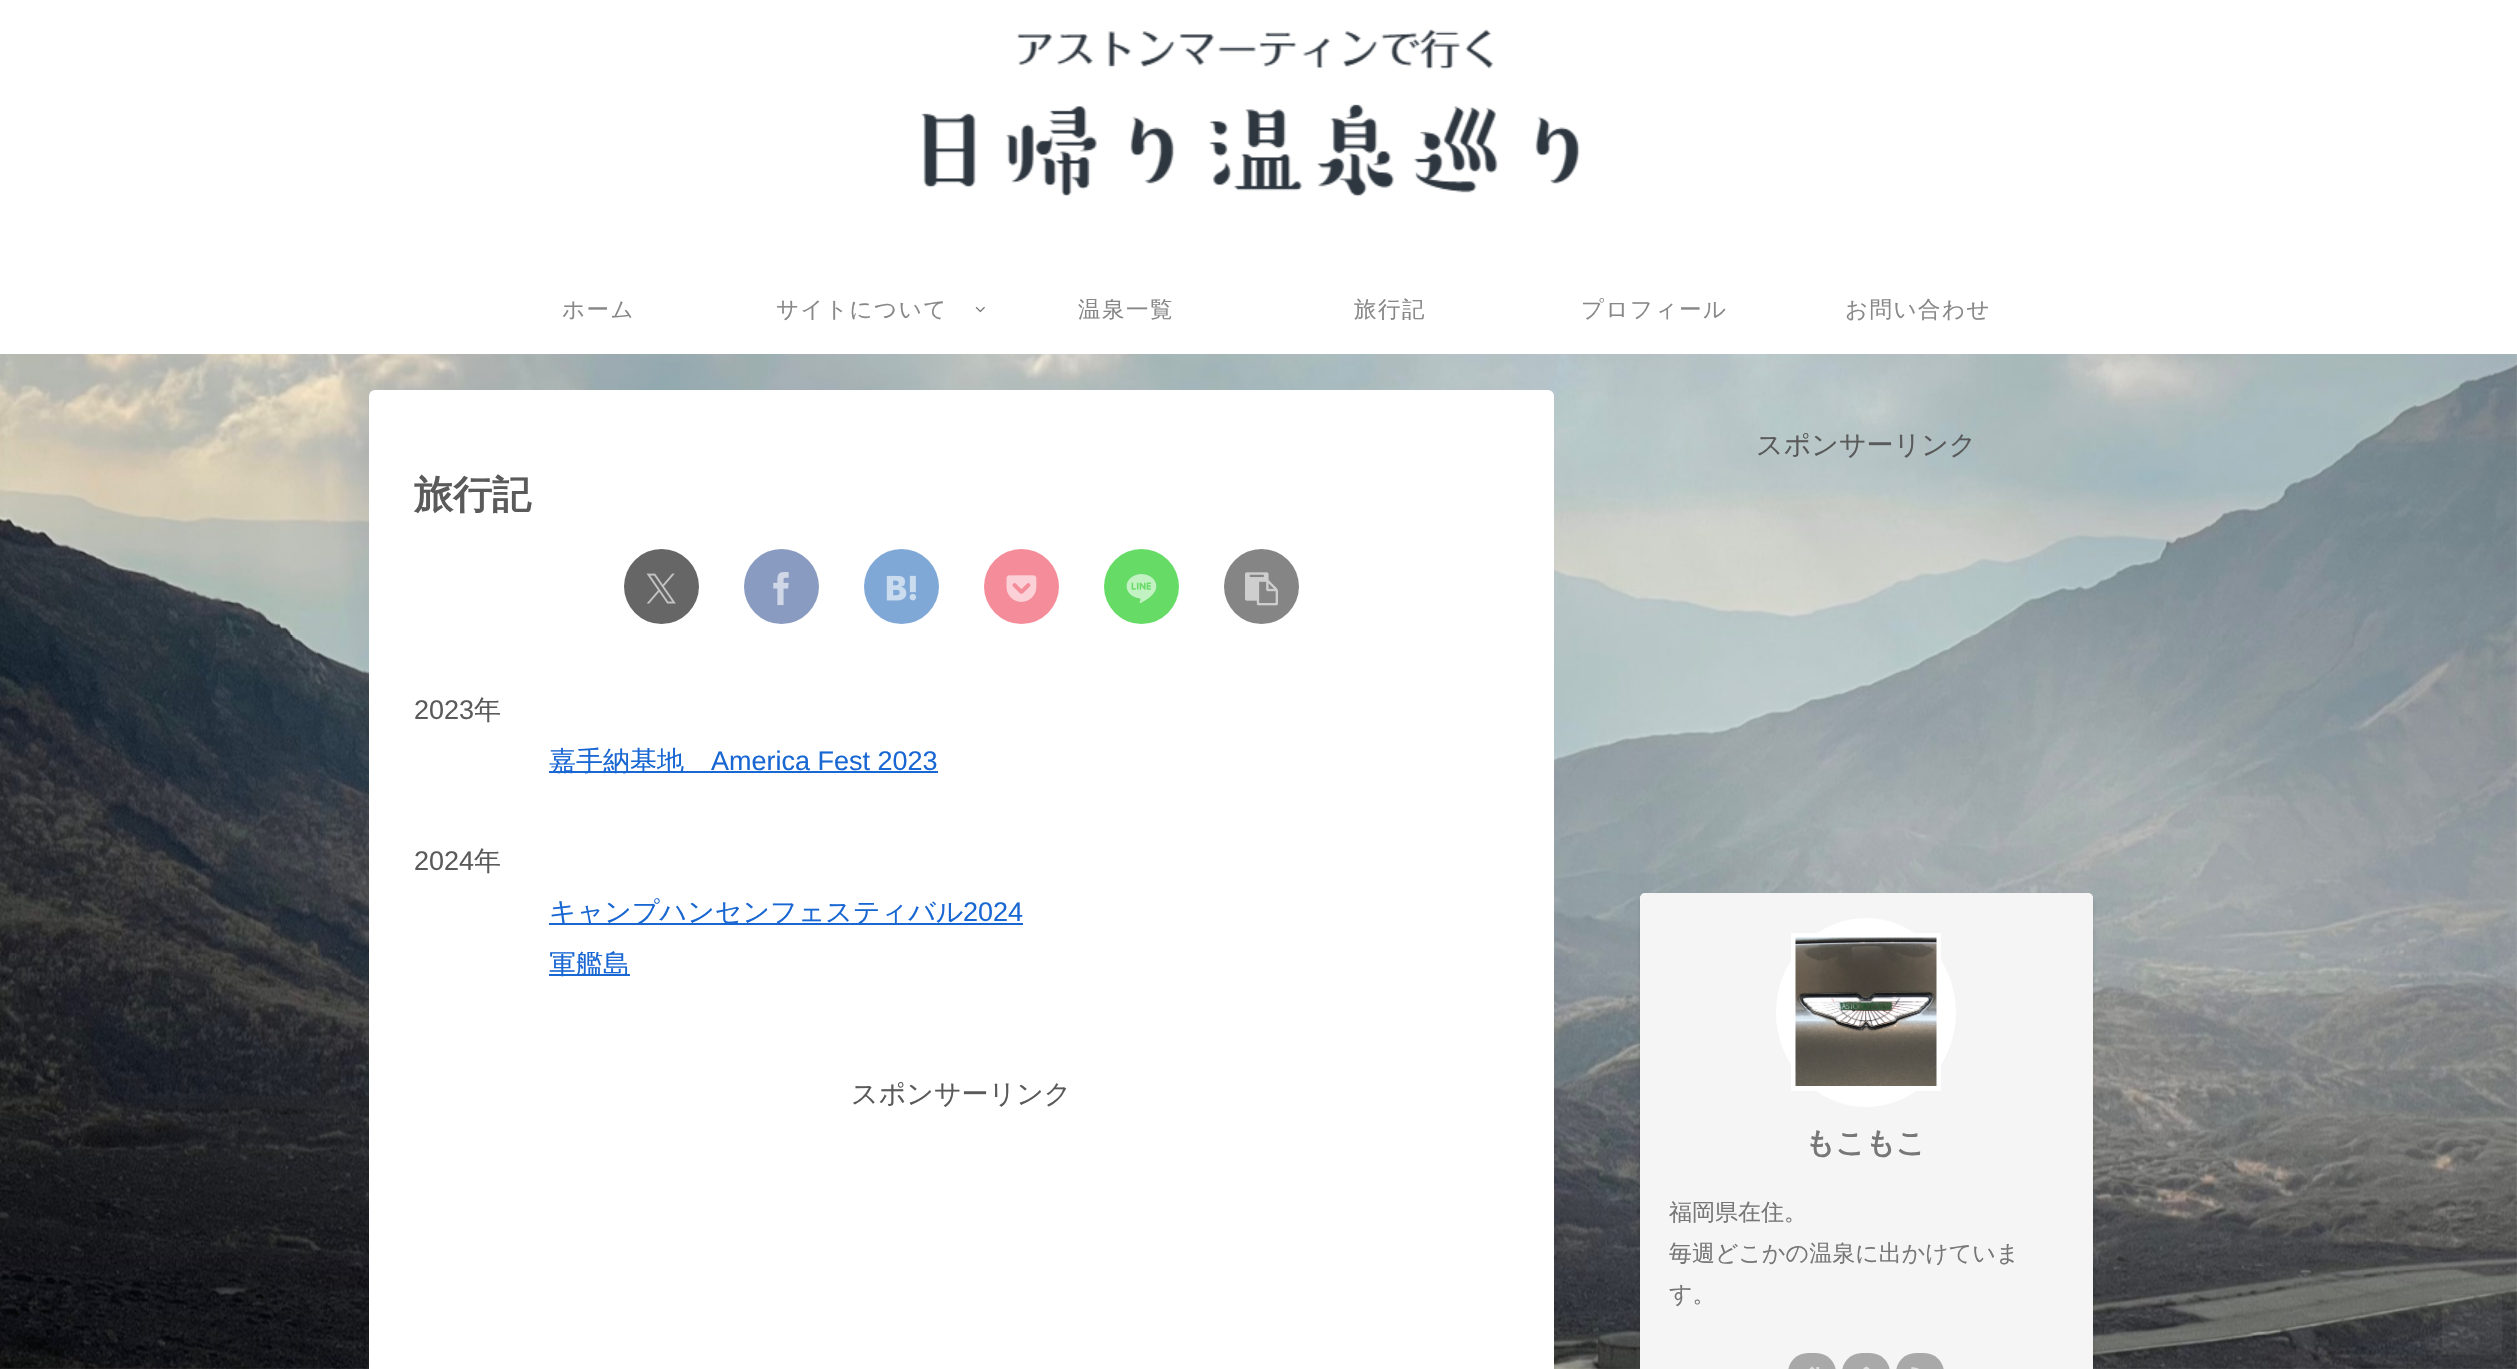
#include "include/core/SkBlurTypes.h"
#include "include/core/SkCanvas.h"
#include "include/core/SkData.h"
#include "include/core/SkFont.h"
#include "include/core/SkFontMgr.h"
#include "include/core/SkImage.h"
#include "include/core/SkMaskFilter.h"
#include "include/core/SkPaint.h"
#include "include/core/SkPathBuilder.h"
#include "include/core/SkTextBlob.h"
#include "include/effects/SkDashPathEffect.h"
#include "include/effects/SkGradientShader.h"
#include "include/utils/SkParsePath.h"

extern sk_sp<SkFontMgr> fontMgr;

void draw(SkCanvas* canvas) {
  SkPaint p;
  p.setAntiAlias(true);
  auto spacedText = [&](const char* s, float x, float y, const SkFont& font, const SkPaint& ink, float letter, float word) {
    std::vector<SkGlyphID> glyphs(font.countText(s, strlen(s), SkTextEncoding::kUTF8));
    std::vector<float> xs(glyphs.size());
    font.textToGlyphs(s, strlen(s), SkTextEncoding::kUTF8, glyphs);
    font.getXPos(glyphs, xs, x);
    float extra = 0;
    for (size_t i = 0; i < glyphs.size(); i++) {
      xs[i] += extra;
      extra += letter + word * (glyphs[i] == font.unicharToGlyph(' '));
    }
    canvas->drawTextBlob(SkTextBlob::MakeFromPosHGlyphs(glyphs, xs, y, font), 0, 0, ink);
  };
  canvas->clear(SK_ColorWHITE);
  canvas->drawImageRect(SkImages::DeferredFromEncodedData(SkData::MakeFromFileName("images/1.png")), SkRect::MakeLTRB(0, 354, 2517, 1369), SkSamplingOptions());
  canvas->drawImageRect(SkImages::DeferredFromEncodedData(SkData::MakeFromFileName("images/2.png")), SkRect::MakeLTRB(921, 29, 1580, 197), SkSamplingOptions());
  canvas->drawImageRect(SkImages::DeferredFromEncodedData(SkData::MakeFromFileName("images/3.png")), SkRect::MakeLTRB(975, 306, 985, 313), SkSamplingOptions());
  p.setColor(SK_ColorWHITE);
  canvas->drawRoundRect(SkRect::MakeLTRB(369, 390, 1554, 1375), 6, 6, p);
  p.setColor(SkColorSetRGB(102, 102, 102));
  canvas->drawCircle(661.5f, 586.5f, 37.5f, p);
  canvas->drawImageRect(SkImages::DeferredFromEncodedData(SkData::MakeFromFileName("images/4.png")), SkRect::MakeLTRB(646, 573, 676, 604), SkSamplingOptions());
  p.setColor(SkColorSetRGB(137, 155, 193));
  canvas->drawCircle(781.5f, 586.5f, 37.5f, p);
  canvas->drawImageRect(SkImages::DeferredFromEncodedData(SkData::MakeFromFileName("images/5.png")), SkRect::MakeLTRB(773, 572, 789, 606), SkSamplingOptions());
  p.setColor(SkColorSetRGB(128, 168, 215));
  canvas->drawCircle(901.5f, 586.5f, 37.5f, p);
  canvas->drawImageRect(SkImages::DeferredFromEncodedData(SkData::MakeFromFileName("images/6.png")), SkRect::MakeLTRB(886, 575, 917, 601), SkSamplingOptions());
  p.setColor(SkColorSetRGB(245, 140, 154));
  canvas->drawCircle(1021.5f, 586.5f, 37.5f, p);
  canvas->drawImageRect(SkImages::DeferredFromEncodedData(SkData::MakeFromFileName("images/7.png")), SkRect::MakeLTRB(1006, 575, 1037, 602), SkSamplingOptions());
  p.setColor(SkColorSetRGB(102, 219, 102));
  canvas->drawCircle(1141.5f, 586.5f, 37.5f, p);
  canvas->drawImageRect(SkImages::DeferredFromEncodedData(SkData::MakeFromFileName("images/8.png")), SkRect::MakeLTRB(1126, 574, 1157, 603), SkSamplingOptions());
  p.setColor(SkColorSetRGB(133, 133, 133));
  canvas->drawCircle(1261.5f, 586.5f, 37.5f, p);
  canvas->drawImageRect(SkImages::DeferredFromEncodedData(SkData::MakeFromFileName("images/9.png")), SkRect::MakeLTRB(1245, 572, 1278, 606), SkSamplingOptions());
  p.setColor(SkColorSetRGB(25, 103, 210));
  canvas->drawRect(SkRect::MakeLTRB(549, 771, 938, 773), p);
  canvas->drawRect(SkRect::MakeLTRB(549, 923, 1023, 925), p);
  canvas->drawRect(SkRect::MakeLTRB(549, 974, 630, 976), p);
  p.setColor(SkColorSetARGB(31, 0, 0, 0));
  p.setMaskFilter(SkMaskFilter::MakeBlur(kNormal_SkBlurStyle, 2));
  canvas->drawRoundRect(SkRect::MakeLTRB(1640, 897, 2093, 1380), 5, 5, p);
  p.setMaskFilter(nullptr);
  p.setColor(SK_ColorWHITE);
  canvas->drawRoundRect(SkRect::MakeLTRB(1640, 893, 2093, 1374), 5, 5, p);
  p.setColor(SkColorSetRGB(245, 245, 245));
  canvas->drawRoundRect(SkRect::MakeLTRB(1640, 893, 2093, 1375), 6, 6, p);
  p.setColor(SK_ColorWHITE);
  canvas->drawOval(SkRect::MakeLTRB(1776, 918, 1956, 1107), p);
  p.setStyle(SkPaint::kStroke_Style);
  p.setStrokeWidth(5);
  canvas->drawRect(SkRect::MakeLTRB(1793.5f, 935.5f, 1938.5f, 1088.5f), p);
  canvas->drawImageRect(SkImages::DeferredFromEncodedData(SkData::MakeFromFileName("images/10.png")), SkRect::MakeLTRB(1795, 937, 1937, 1086), SkSamplingOptions());
  p.setStyle(SkPaint::kFill_Style);
  p.setColor(SkColorSetRGB(169, 169, 169));
  canvas->drawRoundRect(SkRect::MakeLTRB(1788, 1353, 1836, 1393), 24, 24, p);
  canvas->drawImageRect(SkImages::DeferredFromEncodedData(SkData::MakeFromFileName("images/11.png")), SkRect::MakeLTRB(1809, 1366, 1820, 1369), SkSamplingOptions());
  canvas->drawRoundRect(SkRect::MakeLTRB(1842, 1353, 1890, 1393), 24, 24, p);
  canvas->drawImageRect(SkImages::DeferredFromEncodedData(SkData::MakeFromFileName("images/12.png")), SkRect::MakeLTRB(1863, 1366, 1870, 1369), SkSamplingOptions());
  canvas->drawRoundRect(SkRect::MakeLTRB(1896, 1353, 1944, 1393), 24, 24, p);
  canvas->drawImageRect(SkImages::DeferredFromEncodedData(SkData::MakeFromFileName("images/13.png")), SkRect::MakeLTRB(1911, 1367, 1919, 1369), SkSamplingOptions());
  p.setColor(SkColorSetARGB(13, 238, 238, 238));
  canvas->drawRect(SkRect::MakeLTRB(2442, 1295, 2502, 1355), p);
  SkFont font1(fontMgr->matchFamilyStyle("WenQuanYi Zen Hei", SkFontStyle(500, SkFontStyle::kNormal_Width, SkFontStyle::kUpright_Slant)), 22.5f);
  font1.setSubpixel(true);
  p.setColor(SkColorSetRGB(136, 136, 136));
  spacedText("ホーム", 562, 317, font1, p, 1.5f, 0);
  spacedText("サイトについて", 776, 317, font1, p, 1.5f, 0);
  spacedText("温泉一覧", 1078, 317, font1, p, 1.5f, 0);
  spacedText("旅行記", 1354, 317, font1, p, 1.5f, 0);
  spacedText("プロフィール", 1581, 317, font1, p, 1.5f, 0);
  spacedText("お問い合わせ", 1845, 317, font1, p, 1.5f, 0);
  SkFont font2(fontMgr->matchFamilyStyle("WenQuanYi Zen Hei", SkFontStyle::Bold()), 39);
  font2.setSubpixel(true);
  p.setColor(SkColorSetRGB(90, 90, 90));
  canvas->drawString("旅行記", 414, 508, font2, p);
  SkFont font3(fontMgr->matchFamilyStyle("Liberation Sans", SkFontStyle::Normal()), 27);
  font3.setSubpixel(true);
  canvas->drawString("2023", 414, 719, font3, p);
  SkFont font4(fontMgr->matchFamilyStyle("WenQuanYi Zen Hei", SkFontStyle(500, SkFontStyle::kNormal_Width, SkFontStyle::kUpright_Slant)), 27);
  font4.setSubpixel(true);
  canvas->drawString("年", 474, 719, font4, p);
  p.setColor(SkColorSetRGB(25, 103, 210));
  canvas->drawString("嘉手納基地", 549, 770, font4, p);
  canvas->drawString("America Fest 2023", 711, 770, font3, p);
  p.setColor(SkColorSetRGB(90, 90, 90));
  canvas->drawString("2024", 414, 870, font3, p);
  canvas->drawString("年", 474, 870, font4, p);
  p.setColor(SkColorSetRGB(25, 103, 210));
  canvas->drawString("キャンプハンセンフェスティバル", 549, 921, font4, p);
  canvas->drawString("2024", 963, 921, font3, p);
  canvas->drawString("軍艦島", 549, 973, font4, p);
  p.setColor(SkColorSetRGB(90, 90, 90));
  canvas->drawString("スポンサーリンク", 851, 1103, font4, p);
  canvas->drawString("スポンサーリンク", 1756, 454, font4, p);
  SkFont font5(fontMgr->matchFamilyStyle("WenQuanYi Zen Hei", SkFontStyle::Bold()), 29.5f);
  font5.setSubpixel(true);
  p.setColor(SkColorSetRGB(119, 119, 119));
  canvas->drawString("もこもこ", 1805, 1153, font5, p);
  SkFont font6(fontMgr->matchFamilyStyle("WenQuanYi Zen Hei", SkFontStyle(500, SkFontStyle::kNormal_Width, SkFontStyle::kUpright_Slant)), 23);
  font6.setSubpixel(true);
  canvas->drawString("福岡県在住。", 1669, 1220, font6, p);
  canvas->drawString("毎週どこかの温泉に出かけていま", 1669, 1261, font6, p);
  canvas->drawString("す。", 1669, 1302, font6, p);
}
